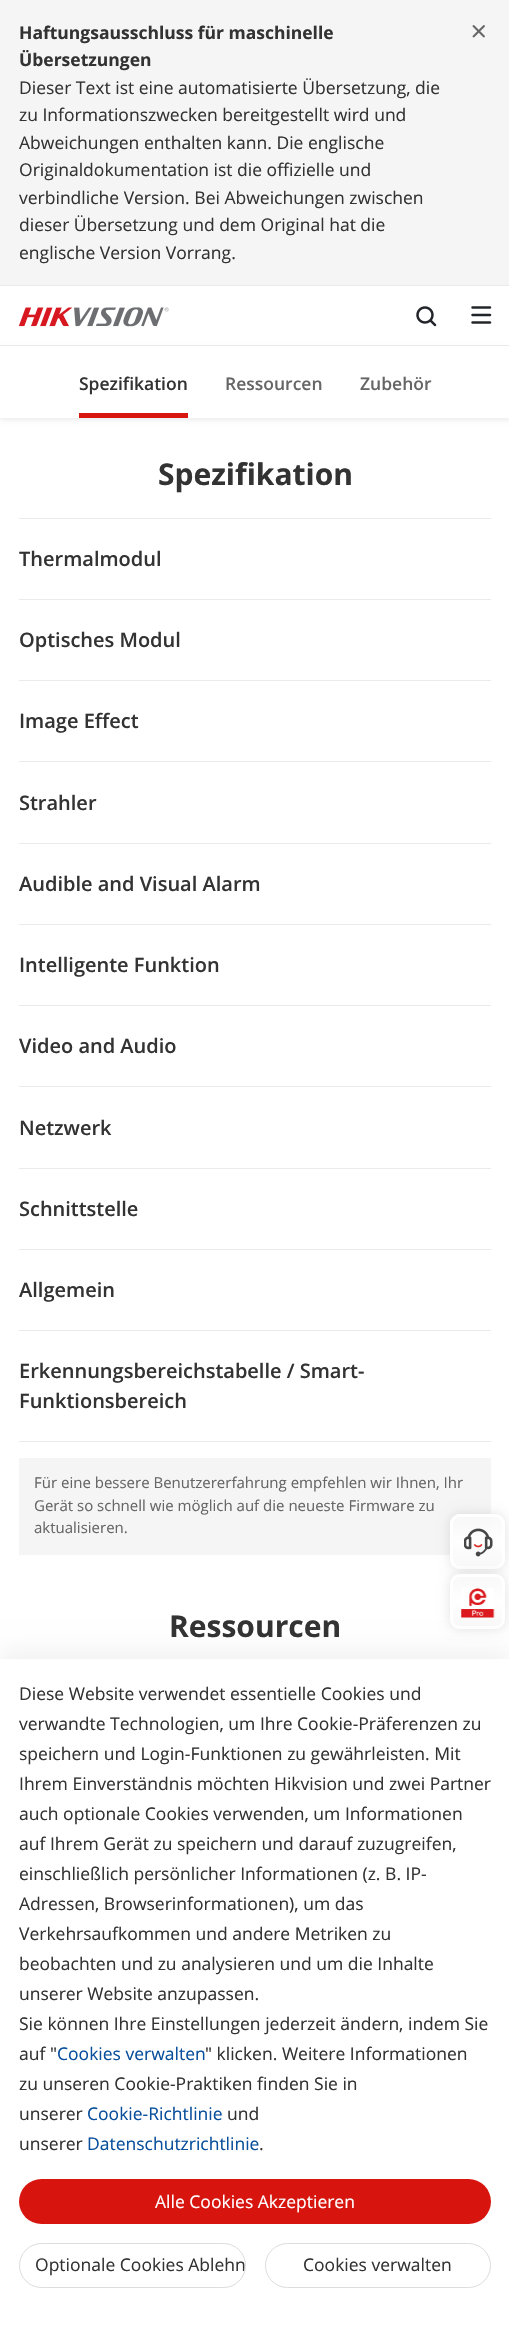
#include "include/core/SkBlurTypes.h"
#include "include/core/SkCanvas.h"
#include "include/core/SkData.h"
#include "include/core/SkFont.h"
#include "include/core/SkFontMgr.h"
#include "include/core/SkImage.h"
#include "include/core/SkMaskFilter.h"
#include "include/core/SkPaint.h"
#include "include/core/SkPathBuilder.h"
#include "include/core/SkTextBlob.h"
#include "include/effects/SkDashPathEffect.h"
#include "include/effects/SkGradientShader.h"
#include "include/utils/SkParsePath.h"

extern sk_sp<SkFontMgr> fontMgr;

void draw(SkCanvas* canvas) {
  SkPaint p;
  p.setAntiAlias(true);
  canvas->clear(SK_ColorWHITE);
  p.setColor(SkColorSetRGB(245, 245, 245));
  canvas->drawRect(SkRect::MakeLTRB(0, 0, 509, 285), p);
  p.setColor(SkColorSetRGB(234, 234, 234));
  canvas->drawRect(SkRect::MakeLTRB(0, 285, 509, 286), p);
  canvas->drawImageRect(SkImages::DeferredFromEncodedData(SkData::MakeFromFileName("images/1.png")), SkRect::MakeLTRB(472, 25, 485, 38), SkSamplingOptions());
  p.setColor(SkColorSetARGB(20, 0, 0, 0));
  p.setMaskFilter(SkMaskFilter::MakeBlur(kNormal_SkBlurStyle, 2.5f));
  canvas->drawRect(SkRect::MakeLTRB(0, 349, 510, 420), p);
  p.setMaskFilter(nullptr);
  p.setColor(SkColorSetRGB(234, 234, 234));
  canvas->drawRect(SkRect::MakeLTRB(0, 345, 509, 346), p);
  canvas->drawImageRect(SkImages::DeferredFromEncodedData(SkData::MakeFromFileName("images/2.png")), SkRect::MakeLTRB(19, 307, 169, 327), SkSamplingOptions());
  canvas->drawImageRect(SkImages::DeferredFromEncodedData(SkData::MakeFromFileName("images/3.png")), SkRect::MakeLTRB(416, 306, 437, 327), SkSamplingOptions());
  canvas->drawImageRect(SkImages::DeferredFromEncodedData(SkData::MakeFromFileName("images/4.png")), SkRect::MakeLTRB(471, 306, 492, 324), SkSamplingOptions());
  p.setColor(SK_ColorWHITE);
  canvas->drawRect(SkRect::MakeLTRB(0, 346, 509, 418), p);
  p.setColor(SkColorSetRGB(215, 21, 14));
  canvas->drawRect(SkRect::MakeLTRB(79, 413, 188, 418), p);
  p.setColor(SkColorSetRGB(234, 234, 234));
  canvas->drawRect(SkRect::MakeLTRB(19, 518, 491, 519), p);
  canvas->drawRect(SkRect::MakeLTRB(19, 599, 491, 600), p);
  canvas->drawRect(SkRect::MakeLTRB(19, 680, 491, 681), p);
  canvas->drawRect(SkRect::MakeLTRB(19, 761, 491, 762), p);
  canvas->drawRect(SkRect::MakeLTRB(19, 843, 491, 844), p);
  canvas->drawRect(SkRect::MakeLTRB(19, 924, 491, 925), p);
  canvas->drawRect(SkRect::MakeLTRB(19, 1005, 491, 1006), p);
  canvas->drawRect(SkRect::MakeLTRB(19, 1086, 491, 1087), p);
  canvas->drawRect(SkRect::MakeLTRB(19, 1168, 491, 1169), p);
  canvas->drawRect(SkRect::MakeLTRB(19, 1249, 491, 1250), p);
  canvas->drawRect(SkRect::MakeLTRB(19, 1330, 491, 1331), p);
  canvas->drawRect(SkRect::MakeLTRB(19, 1441, 491, 1442), p);
  p.setColor(SkColorSetRGB(245, 245, 245));
  canvas->drawRect(SkRect::MakeLTRB(19, 1458, 491, 1555), p);
  canvas->save();
  canvas->clipPath(SkPathBuilder(SkPathFillType::kEvenOdd).moveTo(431, 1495).lineTo(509, 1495).lineTo(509, 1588).lineTo(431, 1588).close().moveTo(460, 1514).lineTo(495, 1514).cubicTo(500.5f, 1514, 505, 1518.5f, 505, 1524).lineTo(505, 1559).cubicTo(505, 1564.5f, 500.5f, 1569, 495, 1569).lineTo(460, 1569).cubicTo(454.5f, 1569, 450, 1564.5f, 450, 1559).lineTo(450, 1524).cubicTo(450, 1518.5f, 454.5f, 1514, 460, 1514).close().detach(), true);
  p.setColor(SkColorSetARGB(28, 0, 0, 0));
  p.setMaskFilter(SkMaskFilter::MakeBlur(kNormal_SkBlurStyle, 6));
  canvas->drawRoundRect(SkRect::MakeLTRB(450, 1514, 505, 1569), 10, 10, p);
  p.setMaskFilter(nullptr);
  canvas->restore();
  canvas->save();
  canvas->clipPath(SkPathBuilder().moveTo(460, 1514).lineTo(495, 1514).cubicTo(500.5f, 1514, 505, 1518.5f, 505, 1524).lineTo(505, 1559).cubicTo(505, 1564.5f, 500.5f, 1569, 495, 1569).lineTo(460, 1569).cubicTo(454.5f, 1569, 450, 1564.5f, 450, 1559).lineTo(450, 1524).cubicTo(450, 1518.5f, 454.5f, 1514, 460, 1514).close().detach(), true);
  {
    const SkColor colors[] = {SkColorSetARGB(230, 248, 248, 248), SkColorSetARGB(230, 255, 255, 255), SkColorSetARGB(230, 248, 248, 248)};
    const float stops[] = {0, 0.51f, 1};
    const SkPoint ends[] = {{478, 1466}, {478, 1516}};
    p.setShader(SkGradientShader::MakeLinear(ends, colors, stops, 3, SkTileMode::kClamp));
    p.setAlpha(255);
  }
  canvas->drawRect(SkRect::MakeLTRB(450, 1514, 505, 1516), p);
  {
    const SkColor colors[] = {SkColorSetARGB(230, 248, 248, 248), SkColorSetARGB(230, 255, 255, 255), SkColorSetARGB(230, 248, 248, 248)};
    const float stops[] = {0, 0.51f, 1};
    const SkPoint ends[] = {{478, 1516}, {478, 1566}};
    p.setShader(SkGradientShader::MakeLinear(ends, colors, stops, 3, SkTileMode::kClamp));
    p.setAlpha(255);
  }
  canvas->drawRect(SkRect::MakeLTRB(450, 1516, 505, 1566), p);
  {
    const SkColor colors[] = {SkColorSetRGB(249, 249, 249), SK_ColorWHITE, SkColorSetRGB(249, 249, 249)};
    const float stops[] = {0, 0.51f, 1};
    const SkPoint ends[] = {{478, 1566}, {478, 1616}};
    p.setShader(SkGradientShader::MakeLinear(ends, colors, stops, 3, SkTileMode::kClamp));
    p.setAlpha(255);
  }
  canvas->drawRect(SkRect::MakeLTRB(450, 1566, 505, 1569), p);
  canvas->restore();
  p.setStyle(SkPaint::kStroke_Style);
  p.setStrokeWidth(3);
  p.setShader(nullptr);
  p.setColor(SkColorSetARGB(230, 255, 255, 255));
  canvas->drawRoundRect(SkRect::MakeLTRB(451.5f, 1515.5f, 503.5f, 1567.5f), 8.5f, 8.5f, p);
  canvas->drawImageRect(SkImages::DeferredFromEncodedData(SkData::MakeFromFileName("images/5.png")), SkRect::MakeLTRB(464, 1528, 493, 1557), SkSamplingOptions());
  canvas->save();
  canvas->clipPath(SkPathBuilder(SkPathFillType::kEvenOdd).moveTo(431, 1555).lineTo(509, 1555).lineTo(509, 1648).lineTo(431, 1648).close().moveTo(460, 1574).lineTo(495, 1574).cubicTo(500.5f, 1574, 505, 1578.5f, 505, 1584).lineTo(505, 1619).cubicTo(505, 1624.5f, 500.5f, 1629, 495, 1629).lineTo(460, 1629).cubicTo(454.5f, 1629, 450, 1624.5f, 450, 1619).lineTo(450, 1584).cubicTo(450, 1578.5f, 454.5f, 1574, 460, 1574).close().detach(), true);
  p.setStyle(SkPaint::kFill_Style);
  p.setColor(SkColorSetARGB(28, 0, 0, 0));
  p.setMaskFilter(SkMaskFilter::MakeBlur(kNormal_SkBlurStyle, 6));
  canvas->drawRoundRect(SkRect::MakeLTRB(450, 1574, 505, 1629), 10, 10, p);
  p.setMaskFilter(nullptr);
  canvas->restore();
  canvas->save();
  canvas->clipPath(SkPathBuilder().moveTo(460, 1574).lineTo(495, 1574).cubicTo(500.5f, 1574, 505, 1578.5f, 505, 1584).lineTo(505, 1619).cubicTo(505, 1624.5f, 500.5f, 1629, 495, 1629).lineTo(460, 1629).cubicTo(454.5f, 1629, 450, 1624.5f, 450, 1619).lineTo(450, 1584).cubicTo(450, 1578.5f, 454.5f, 1574, 460, 1574).close().detach(), true);
  {
    const SkColor colors[] = {SkColorSetRGB(248, 248, 248), SK_ColorWHITE, SkColorSetRGB(248, 248, 248)};
    const float stops[] = {0, 0.51f, 1};
    const SkPoint ends[] = {{478, 1526}, {478, 1576}};
    p.setShader(SkGradientShader::MakeLinear(ends, colors, stops, 3, SkTileMode::kClamp));
    p.setAlpha(255);
  }
  canvas->drawRect(SkRect::MakeLTRB(450, 1574, 505, 1576), p);
  {
    const SkColor colors[] = {SkColorSetARGB(230, 248, 248, 248), SkColorSetARGB(230, 255, 255, 255), SkColorSetARGB(230, 248, 248, 248)};
    const float stops[] = {0, 0.51f, 1};
    const SkPoint ends[] = {{478, 1576}, {478, 1626}};
    p.setShader(SkGradientShader::MakeLinear(ends, colors, stops, 3, SkTileMode::kClamp));
    p.setAlpha(255);
  }
  canvas->drawRect(SkRect::MakeLTRB(450, 1576, 505, 1626), p);
  {
    const SkColor colors[] = {SkColorSetRGB(249, 249, 249), SK_ColorWHITE, SkColorSetRGB(249, 249, 249)};
    const float stops[] = {0, 0.51f, 1};
    const SkPoint ends[] = {{478, 1626}, {478, 1676}};
    p.setShader(SkGradientShader::MakeLinear(ends, colors, stops, 3, SkTileMode::kClamp));
    p.setAlpha(255);
  }
  canvas->drawRect(SkRect::MakeLTRB(450, 1626, 505, 1629), p);
  canvas->restore();
  p.setStyle(SkPaint::kStroke_Style);
  p.setShader(nullptr);
  p.setColor(SkColorSetARGB(230, 255, 255, 255));
  canvas->drawRoundRect(SkRect::MakeLTRB(451.5f, 1575.5f, 503.5f, 1627.5f), 8.5f, 8.5f, p);
  canvas->drawImageRect(SkImages::DeferredFromEncodedData(SkData::MakeFromFileName("images/6.png")), SkRect::MakeLTRB(461, 1588, 495, 1618), SkSamplingOptions());
  p.setStyle(SkPaint::kFill_Style);
  p.setColor(SkColorSetARGB(13, 0, 0, 0));
  p.setMaskFilter(SkMaskFilter::MakeBlur(kNormal_SkBlurStyle, 10));
  canvas->drawRect(SkRect::MakeLTRB(0, 1650, 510, 2318), p);
  p.setMaskFilter(nullptr);
  p.setColor(SK_ColorWHITE);
  canvas->drawRect(SkRect::MakeLTRB(0, 1659, 509, 2326), p);
  p.setColor(SkColorSetRGB(215, 21, 14));
  canvas->drawRoundRect(SkRect::MakeLTRB(19, 2179, 491, 2224), 22.5f, 22.5f, p);
  p.setStyle(SkPaint::kStroke_Style);
  p.setStrokeWidth(1);
  p.setColor(SkColorSetRGB(221, 221, 221));
  canvas->drawRoundRect(SkRect::MakeLTRB(19.5f, 2243.5f, 245.5f, 2287.5f), 22, 22, p);
  canvas->drawRoundRect(SkRect::MakeLTRB(265.5f, 2243.5f, 490.5f, 2287.5f), 22, 22, p);
  SkFont font1(fontMgr->matchFamilyStyle("Open Sans", SkFontStyle::Bold()), 17.5f);
  font1.setSubpixel(true);
  p.setStyle(SkPaint::kFill_Style);
  p.setColor(SkColorSetRGB(51, 51, 51));
  canvas->drawString("Haftungsausschluss für maschinelle", 19, 39, font1, p);
  canvas->drawString("Übersetzungen", 19, 66, font1, p);
  SkFont font2(fontMgr->matchFamilyStyle("Open Sans", SkFontStyle::Normal()), 17.5f);
  font2.setSubpixel(true);
  canvas->drawString("Dieser Text ist eine automatisierte Übersetzung, die", 19, 94, font2, p);
  canvas->drawString("zu Informationszwecken bereitgestellt wird und", 19, 121, font2, p);
  canvas->drawString("Abweichungen enthalten kann. Die englische", 19, 149, font2, p);
  canvas->drawString("Originaldokumentation ist die offizielle und", 19, 176, font2, p);
  canvas->drawString("verbindliche Version. Bei Abweichungen zwischen", 19, 204, font2, p);
  canvas->drawString("dieser Übersetzung und dem Original hat die", 19, 231, font2, p);
  canvas->drawString("englische Version Vorrang.", 19, 259, font2, p);
  SkFont font3(fontMgr->matchFamilyStyle("Open Sans", SkFontStyle(600, SkFontStyle::kNormal_Width, SkFontStyle::kUpright_Slant)), 17.5f);
  font3.setSubpixel(true);
  canvas->drawString("Spezifikation", 79, 390, font3, p);
  p.setColor(SkColorSetRGB(102, 102, 102));
  canvas->drawString("Ressourcen", 225, 390, font3, p);
  canvas->drawString("Zubehör", 360, 390, font3, p);
  SkFont font4(fontMgr->matchFamilyStyle("Open Sans", SkFontStyle::Bold()), 30);
  font4.setSubpixel(true);
  p.setColor(SkColorSetRGB(51, 51, 51));
  canvas->drawString("Spezifikation", 158, 485, font4, p);
  SkFont font5(fontMgr->matchFamilyStyle("Open Sans", SkFontStyle(600, SkFontStyle::kNormal_Width, SkFontStyle::kUpright_Slant)), 20);
  font5.setSubpixel(true);
  canvas->drawString("Thermalmodul", 19, 566, font5, p);
  canvas->drawString("Optisches Modul", 19, 647, font5, p);
  canvas->drawString("Image Effect", 19, 728, font5, p);
  canvas->drawString("Strahler", 19, 810, font5, p);
  canvas->drawString("Audible and Visual Alarm", 19, 891, font5, p);
  canvas->drawString("Intelligente Funktion", 19, 972, font5, p);
  canvas->drawString("Video and Audio", 19, 1053, font5, p);
  canvas->drawString("Netzwerk", 19, 1135, font5, p);
  canvas->drawString("Schnittstelle", 19, 1216, font5, p);
  canvas->drawString("Allgemein", 19, 1297, font5, p);
  canvas->drawString("Erkennungsbereichstabelle / Smart-", 19, 1378, font5, p);
  canvas->drawString("Funktionsbereich", 19, 1408, font5, p);
  SkFont font6(fontMgr->matchFamilyStyle("Open Sans", SkFontStyle::Normal()), 15);
  font6.setSubpixel(true);
  p.setColor(SkColorSetRGB(102, 102, 102));
  canvas->drawString("Für eine bessere Benutzererfahrung empfehlen wir Ihnen, Ihr", 34, 1488, font6, p);
  canvas->drawString("Gerät so schnell wie möglich auf die neueste Firmware zu", 34, 1511, font6, p);
  canvas->drawString("aktualisieren.", 34, 1533, font6, p);
  p.setColor(SkColorSetRGB(51, 51, 51));
  canvas->drawString("Ressourcen", 169, 1637, font4, p);
  canvas->drawString("Diese Website verwendet essentielle Cookies und", 19, 1700, font2, p);
  canvas->drawString("verwandte Technologien, um Ihre Cookie-Präferenzen zu", 19, 1730, font2, p);
  canvas->drawString("speichern und Login-Funktionen zu gewährleisten. Mit", 19, 1760, font2, p);
  canvas->drawString("Ihrem Einverständnis möchten Hikvision und zwei Partner", 19, 1790, font2, p);
  canvas->drawString("auch optionale Cookies verwenden, um Informationen", 19, 1820, font2, p);
  canvas->drawString("auf Ihrem Gerät zu speichern und darauf zuzugreifen,", 19, 1850, font2, p);
  canvas->drawString("einschließlich persönlicher Informationen (z. B. IP-", 19, 1880, font2, p);
  canvas->drawString("Adressen, Browserinformationen), um das", 19, 1910, font2, p);
  canvas->drawString("Verkehrsaufkommen und andere Metriken zu", 19, 1940, font2, p);
  canvas->drawString("beobachten und zu analysieren und um die Inhalte", 19, 1970, font2, p);
  canvas->drawString("unserer Website anzupassen.", 19, 2000, font2, p);
  canvas->drawString("Sie können Ihre Einstellungen jederzeit ändern, indem Sie", 19, 2030, font2, p);
  canvas->drawString("auf \"", 19, 2060, font2, p);
  p.setColor(SkColorSetRGB(9, 79, 156));
  canvas->drawString("Cookies verwalten", 57, 2060, font2, p);
  p.setColor(SkColorSetRGB(51, 51, 51));
  canvas->drawString("\" klicken. Weitere Informationen", 205, 2060, font2, p);
  canvas->drawString("zu unseren Cookie-Praktiken finden Sie in", 19, 2090, font2, p);
  canvas->drawString("unserer", 19, 2120, font2, p);
  p.setColor(SkColorSetRGB(9, 79, 156));
  canvas->drawString("Cookie-Richtlinie", 87, 2120, font2, p);
  p.setColor(SkColorSetRGB(51, 51, 51));
  canvas->drawString("und", 227, 2120, font2, p);
  canvas->drawString("unserer", 19, 2150, font2, p);
  p.setColor(SkColorSetRGB(9, 79, 156));
  canvas->drawString("Datenschutzrichtlinie", 87, 2150, font2, p);
  p.setColor(SkColorSetRGB(51, 51, 51));
  canvas->drawString(".", 259, 2150, font2, p);
  p.setColor(SK_ColorWHITE);
  canvas->drawString("Alle Cookies Akzeptieren", 155, 2208, font2, p);
  canvas->save();
  canvas->clipPath(SkPathBuilder().moveTo(41, 2244).lineTo(224, 2244).cubicTo(235.5f, 2244, 245, 2253.5f, 245, 2265).cubicTo(245, 2276.5f, 235.5f, 2286, 224, 2286).lineTo(41, 2286).cubicTo(29.5f, 2286, 20, 2276.5f, 20, 2265).cubicTo(20, 2253.5f, 29.5f, 2244, 41, 2244).close().detach(), true);
  p.setColor(SkColorSetRGB(51, 51, 51));
  canvas->drawString("Optionale Cookies Ablehn", 35, 2271, font2, p);
  canvas->restore();
  canvas->drawString("Cookies verwalten", 303, 2271, font2, p);
}
